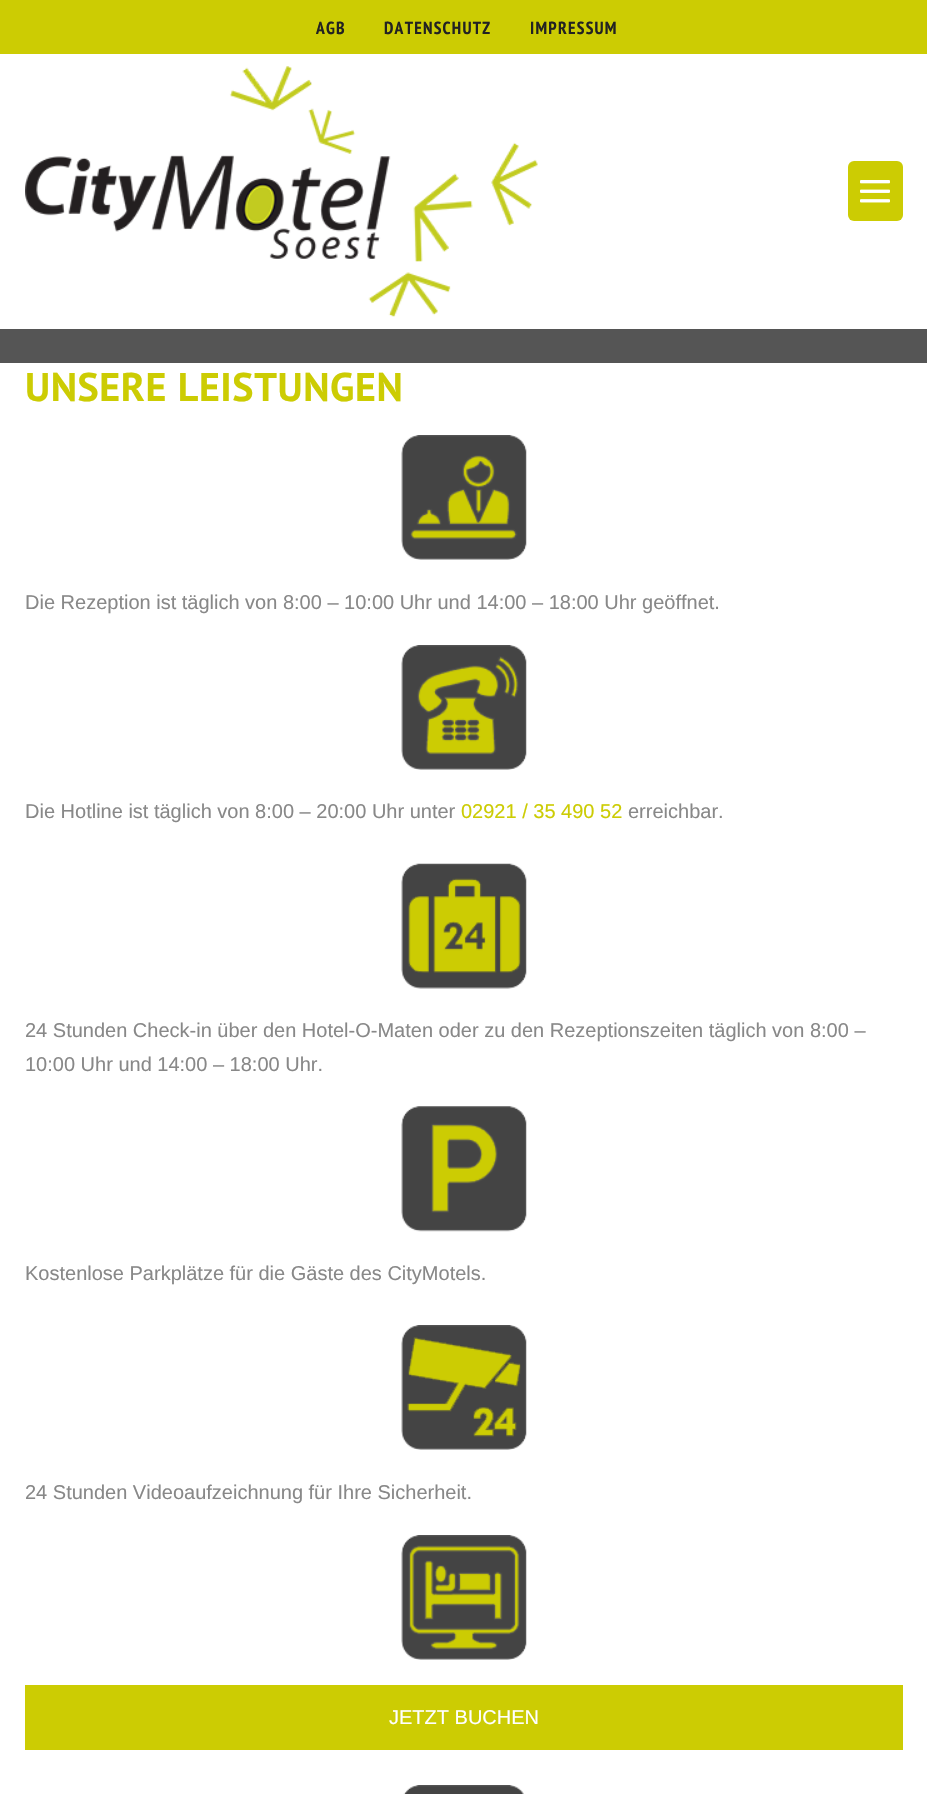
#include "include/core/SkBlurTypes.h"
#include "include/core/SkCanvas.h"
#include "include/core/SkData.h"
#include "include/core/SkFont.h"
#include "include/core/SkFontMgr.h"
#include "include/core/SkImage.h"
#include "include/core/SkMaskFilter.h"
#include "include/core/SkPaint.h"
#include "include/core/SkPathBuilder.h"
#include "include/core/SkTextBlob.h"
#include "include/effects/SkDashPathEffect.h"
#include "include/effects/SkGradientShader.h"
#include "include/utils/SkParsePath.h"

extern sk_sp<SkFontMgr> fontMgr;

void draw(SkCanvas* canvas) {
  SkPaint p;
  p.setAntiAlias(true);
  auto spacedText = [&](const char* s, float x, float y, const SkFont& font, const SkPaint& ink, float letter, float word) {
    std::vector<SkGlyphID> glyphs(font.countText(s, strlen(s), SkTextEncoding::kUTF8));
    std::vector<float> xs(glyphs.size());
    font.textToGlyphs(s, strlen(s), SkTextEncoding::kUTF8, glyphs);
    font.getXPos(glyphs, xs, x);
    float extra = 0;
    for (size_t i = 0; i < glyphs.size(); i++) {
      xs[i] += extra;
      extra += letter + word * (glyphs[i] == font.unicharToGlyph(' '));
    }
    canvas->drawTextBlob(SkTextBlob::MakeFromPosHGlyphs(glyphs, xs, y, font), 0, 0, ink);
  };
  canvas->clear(SK_ColorWHITE);
  p.setColor(SkColorSetRGB(204, 204, 3));
  canvas->drawRect(SkRect::MakeLTRB(0, 0, 927, 54), p);
  canvas->drawImageRect(SkImages::DeferredFromEncodedData(SkData::MakeFromFileName("images/1.png")), SkRect::MakeLTRB(25, 66, 538, 317), SkSamplingOptions());
  canvas->drawRoundRect(SkRect::MakeLTRB(848, 161, 903, 221), 6, 6, p);
  canvas->drawImageRect(SkImages::DeferredFromEncodedData(SkData::MakeFromFileName("images/2.png")), SkRect::MakeLTRB(860, 180, 890, 203), SkSamplingOptions());
  p.setColor(SkColorSetRGB(85, 85, 85));
  canvas->drawRect(SkRect::MakeLTRB(0, 329, 927, 363), p);
  canvas->drawImageRect(SkImages::DeferredFromEncodedData(SkData::MakeFromFileName("images/3.png")), SkRect::MakeLTRB(401, 435, 527, 560), SkSamplingOptions());
  canvas->drawImageRect(SkImages::DeferredFromEncodedData(SkData::MakeFromFileName("images/4.png")), SkRect::MakeLTRB(401, 645, 527, 770), SkSamplingOptions());
  canvas->drawImageRect(SkImages::DeferredFromEncodedData(SkData::MakeFromFileName("images/5.png")), SkRect::MakeLTRB(401, 863, 527, 989), SkSamplingOptions());
  canvas->drawImageRect(SkImages::DeferredFromEncodedData(SkData::MakeFromFileName("images/6.png")), SkRect::MakeLTRB(401, 1106, 527, 1232), SkSamplingOptions());
  canvas->drawImageRect(SkImages::DeferredFromEncodedData(SkData::MakeFromFileName("images/7.png")), SkRect::MakeLTRB(401, 1325, 527, 1450), SkSamplingOptions());
  canvas->drawImageRect(SkImages::DeferredFromEncodedData(SkData::MakeFromFileName("images/8.png")), SkRect::MakeLTRB(401, 1535, 527, 1660), SkSamplingOptions());
  p.setColor(SkColorSetRGB(204, 204, 3));
  canvas->drawRect(SkRect::MakeLTRB(25, 1685, 903, 1750), p);
  canvas->drawImageRect(SkImages::DeferredFromEncodedData(SkData::MakeFromFileName("images/9.png")), SkRect::MakeLTRB(403, 1785, 524, 1794), SkSamplingOptions());
  SkFont font1(fontMgr->matchFamilyStyle("PT Sans Narrow", SkFontStyle::Bold()), 17.5f);
  font1.setSubpixel(true);
  p.setColor(SkColorSetRGB(34, 34, 34));
  spacedText("AGB", 316, 34, font1, p, 1.25f, 0);
  spacedText("DATENSCHUTZ", 384, 34, font1, p, 1.25f, 0);
  spacedText("IMPRESSUM", 530, 34, font1, p, 1.25f, 0);
  SkFont font2(fontMgr->matchFamilyStyle("PT Sans", SkFontStyle::Bold()), 40);
  font2.setSubpixel(true);
  p.setColor(SkColorSetRGB(204, 204, 3));
  spacedText("UNSERE LEISTUNGEN", 25, 401, font2, p, 0.6f, 0);
  SkFont font3(fontMgr->matchFamilyStyle("Liberation Sans", SkFontStyle::Normal()), 20);
  font3.setSubpixel(true);
  p.setColor(SkColorSetRGB(136, 136, 136));
  canvas->drawString("Die Rezeption ist täglich von 8:00 – 10:00 Uhr und 14:00 – 18:00 Uhr geöffnet.", 25, 609, font3, p);
  canvas->drawString("Die Hotline ist täglich von 8:00 – 20:00 Uhr unter", 25, 818, font3, p);
  p.setColor(SkColorSetRGB(204, 204, 3));
  canvas->drawString("02921 / 35 490 52", 461, 818, font3, p);
  p.setColor(SkColorSetRGB(136, 136, 136));
  canvas->drawString("erreichbar.", 628, 818, font3, p);
  canvas->drawString("24 Stunden Check-in über den Hotel-O-Maten oder zu den Rezeptionszeiten täglich von 8:00 –", 25, 1037, font3, p);
  canvas->drawString("10:00 Uhr und 14:00 – 18:00 Uhr.", 25, 1071, font3, p);
  canvas->drawString("Kostenlose Parkplätze für die Gäste des CityMotels.", 25, 1280, font3, p);
  canvas->drawString("24 Stunden Videoaufzeichnung für Ihre Sicherheit.", 25, 1499, font3, p);
  p.setColor(SK_ColorWHITE);
  canvas->drawString("JETZT BUCHEN", 389, 1724, font3, p);
}
